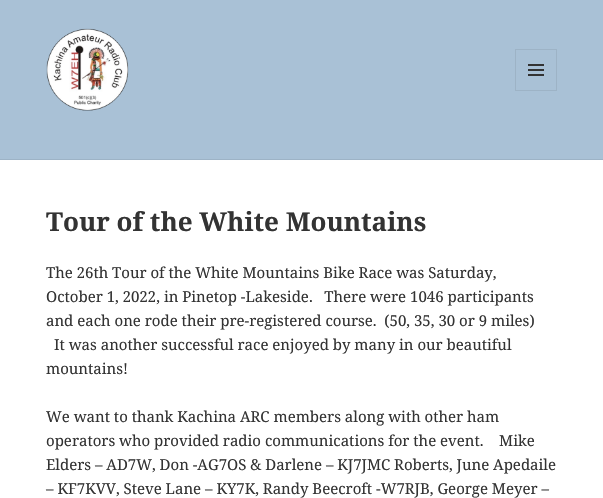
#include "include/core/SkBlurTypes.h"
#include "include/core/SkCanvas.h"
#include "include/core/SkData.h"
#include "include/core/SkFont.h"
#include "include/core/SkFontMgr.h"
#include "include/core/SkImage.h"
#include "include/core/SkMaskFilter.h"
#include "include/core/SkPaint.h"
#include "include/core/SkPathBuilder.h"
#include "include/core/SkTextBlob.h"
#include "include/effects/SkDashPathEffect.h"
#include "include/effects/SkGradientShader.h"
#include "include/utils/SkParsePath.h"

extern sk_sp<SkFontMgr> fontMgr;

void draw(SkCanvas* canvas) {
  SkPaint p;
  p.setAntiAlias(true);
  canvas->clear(SkColorSetRGB(169, 193, 214));
  p.setColor(SkColorSetRGB(157, 179, 198));
  canvas->drawRect(SkRect::MakeLTRB(0, 159, 603, 160), p);
  canvas->drawImageRect(SkImages::DeferredFromEncodedData(SkData::MakeFromFileName("images/1.png")), SkRect::MakeLTRB(46, 28, 129, 111), SkSamplingOptions());
  p.setStyle(SkPaint::kStroke_Style);
  p.setStrokeWidth(1);
  canvas->drawRect(SkRect::MakeLTRB(515.5f, 49.5f, 556.5f, 90.5f), p);
  canvas->drawImageRect(SkImages::DeferredFromEncodedData(SkData::MakeFromFileName("images/2.png")), SkRect::MakeLTRB(528, 64, 544, 76), SkSamplingOptions());
  p.setStyle(SkPaint::kFill_Style);
  p.setColor(SK_ColorWHITE);
  canvas->drawRect(SkRect::MakeLTRB(0, 160, 603, 498), p);
  SkFont font1(fontMgr->matchFamilyStyle("Noto Serif", SkFontStyle::Bold()), 26);
  font1.setSubpixel(true);
  p.setColor(SkColorSetRGB(51, 51, 51));
  canvas->drawString("Tour of the White Mountains", 46, 231, font1, p);
  SkFont font2(fontMgr->matchFamilyStyle("Noto Serif", SkFontStyle::Normal()), 15);
  font2.setSubpixel(true);
  canvas->drawString("The 26th Tour of the White Mountains Bike Race was Saturday,", 46, 278, font2, p);
  canvas->drawString("October 1, 2022, in Pinetop -Lakeside.   There were 1046 participants", 46, 302, font2, p);
  canvas->drawString("and each one rode their pre-registered course.  (50, 35, 30 or 9 miles)", 46, 326, font2, p);
  canvas->drawString("It was another successful race enjoyed by many in our beautiful", 54, 350, font2, p);
  canvas->drawString("mountains!", 46, 374, font2, p);
  canvas->drawString("We want to thank Kachina ARC members along with other ham", 46, 422, font2, p);
  canvas->drawString("operators who provided radio communications for the event.    Mike", 46, 446, font2, p);
  canvas->drawString("Elders – AD7W, Don -AG7OS & Darlene – KJ7JMC Roberts, June Apedaile", 46, 470, font2, p);
  canvas->drawString("– KF7KVV, Steve Lane – KY7K, Randy Beecroft -W7RJB, George Meyer –", 46, 494, font2, p);
}
